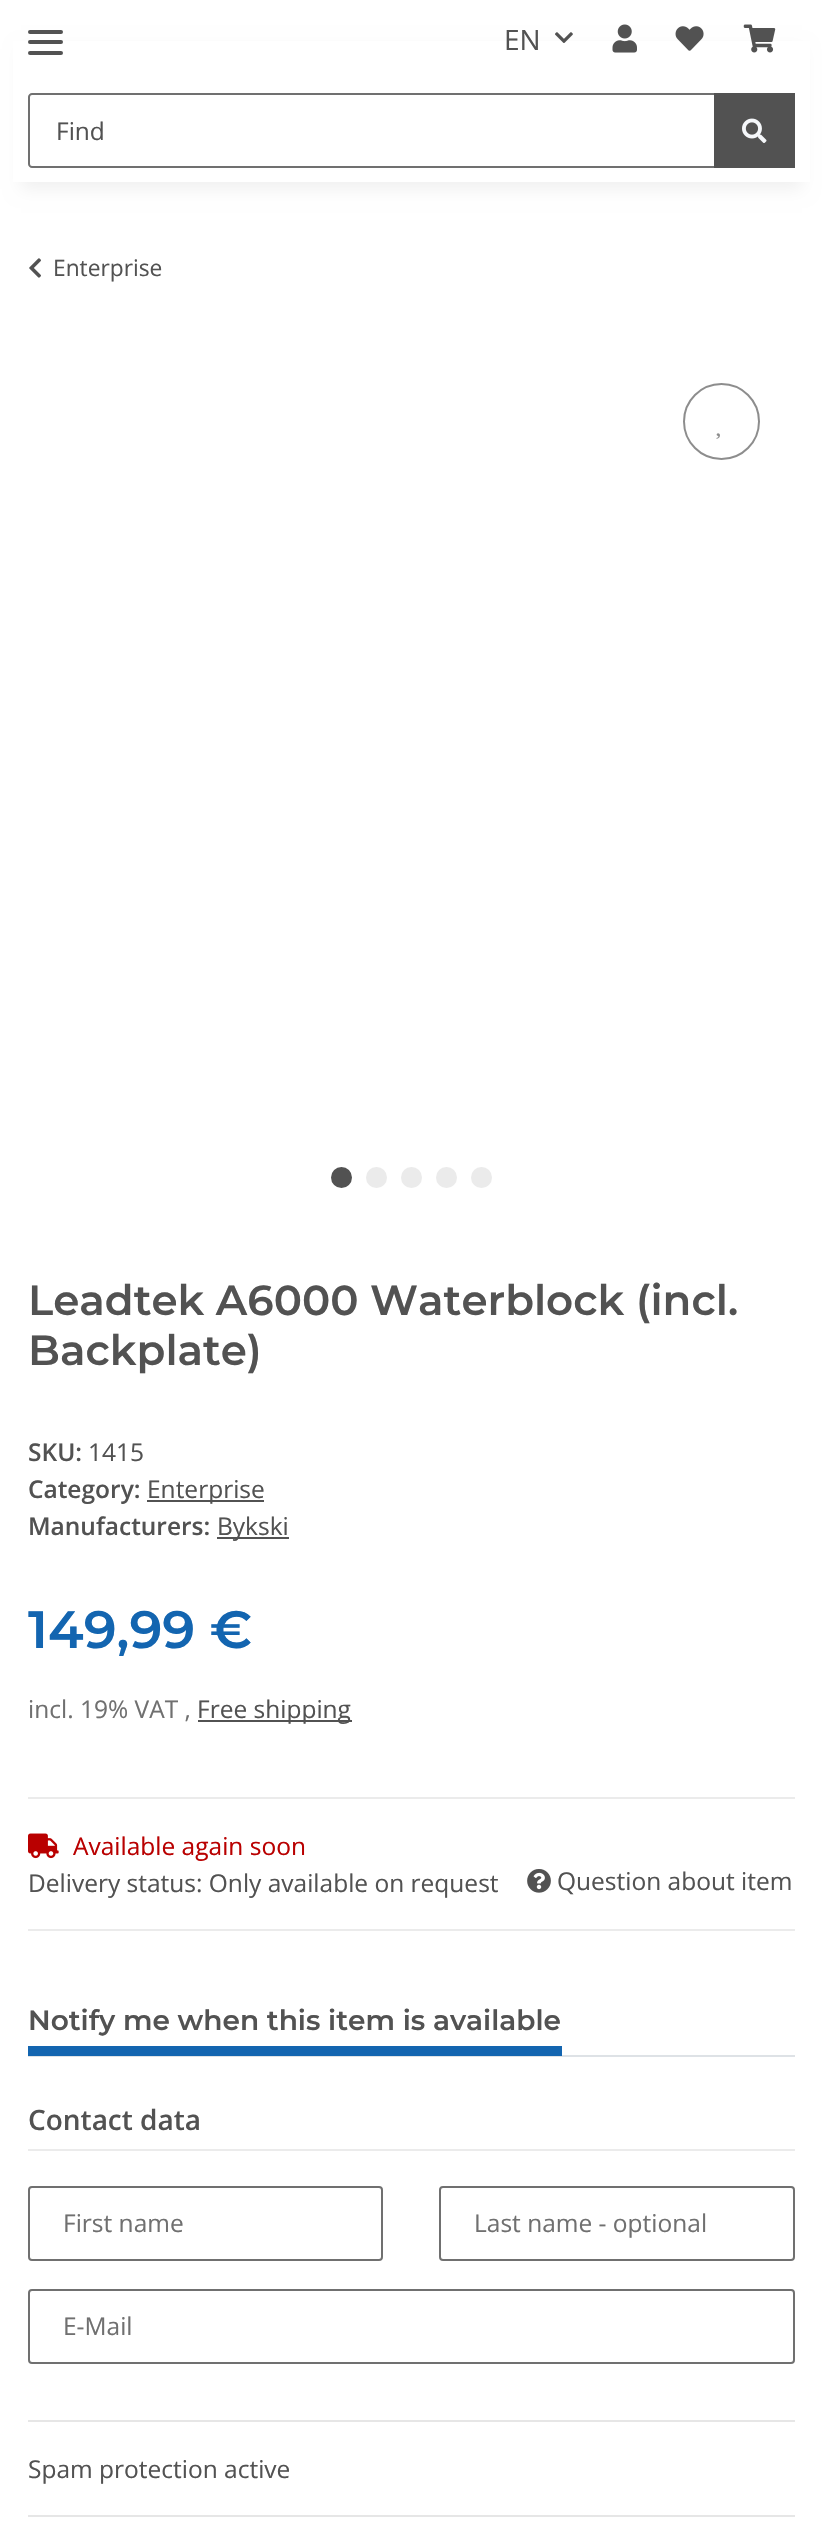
#include "include/core/SkBlurTypes.h"
#include "include/core/SkCanvas.h"
#include "include/core/SkData.h"
#include "include/core/SkFont.h"
#include "include/core/SkFontMgr.h"
#include "include/core/SkImage.h"
#include "include/core/SkMaskFilter.h"
#include "include/core/SkPaint.h"
#include "include/core/SkPathBuilder.h"
#include "include/core/SkTextBlob.h"
#include "include/effects/SkDashPathEffect.h"
#include "include/effects/SkGradientShader.h"
#include "include/utils/SkParsePath.h"

extern sk_sp<SkFontMgr> fontMgr;

void draw(SkCanvas* canvas) {
  SkPaint p;
  p.setAntiAlias(true);
  canvas->clear(SK_ColorWHITE);
  p.setColor(SkColorSetARGB(15, 0, 0, 0));
  p.setMaskFilter(SkMaskFilter::MakeBlur(kNormal_SkBlurStyle, 8));
  canvas->drawRect(SkRect::MakeLTRB(21, 49, 802, 189), p);
  p.setMaskFilter(nullptr);
  p.setColor(SK_ColorWHITE);
  canvas->drawRect(SkRect::MakeLTRB(13, 41, 810, 182), p);
  p.setColor(SkColorSetRGB(82, 82, 82));
  canvas->drawRoundRect(SkRect::MakeLTRB(28, 40, 63, 44), 2, 2, p);
  canvas->drawRoundRect(SkRect::MakeLTRB(28, 30, 63, 34), 2, 2, p);
  canvas->drawRoundRect(SkRect::MakeLTRB(28, 51, 63, 55), 2, 2, p);
  canvas->drawImageRect(SkImages::DeferredFromEncodedData(SkData::MakeFromFileName("images/1.png")), SkRect::MakeLTRB(555, 32, 573, 43), SkSamplingOptions());
  canvas->drawImageRect(SkImages::DeferredFromEncodedData(SkData::MakeFromFileName("images/2.png")), SkRect::MakeLTRB(612, 24, 637, 53), SkSamplingOptions());
  canvas->drawImageRect(SkImages::DeferredFromEncodedData(SkData::MakeFromFileName("images/3.png")), SkRect::MakeLTRB(675, 26, 704, 51), SkSamplingOptions());
  canvas->drawImageRect(SkImages::DeferredFromEncodedData(SkData::MakeFromFileName("images/4.png")), SkRect::MakeLTRB(743, 24, 776, 53), SkSamplingOptions());
  p.setStyle(SkPaint::kStroke_Style);
  p.setStrokeWidth(2);
  p.setColor(SkColorSetRGB(112, 112, 112));
  canvas->drawPath(SkPathBuilder().moveTo(32, 94).lineTo(715, 94).lineTo(715, 167).lineTo(32, 167).cubicTo(30.5f, 167, 29, 165.5f, 29, 164).lineTo(29, 97).cubicTo(29, 95.5f, 30.5f, 94, 32, 94).close().detach(), p);
  p.setStyle(SkPaint::kFill_Style);
  p.setColor(SkColorSetRGB(82, 82, 82));
  canvas->drawRect(SkRect::MakeLTRB(714, 93, 795, 168), p);
  canvas->drawImageRect(SkImages::DeferredFromEncodedData(SkData::MakeFromFileName("images/5.png")), SkRect::MakeLTRB(742, 118, 767, 143), SkSamplingOptions());
  canvas->drawImageRect(SkImages::DeferredFromEncodedData(SkData::MakeFromFileName("images/6.png")), SkRect::MakeLTRB(29, 258, 41, 278), SkSamplingOptions());
  p.setStyle(SkPaint::kStroke_Style);
  p.setColor(SkColorSetRGB(141, 141, 141));
  canvas->drawCircle(721.5f, 421.5f, 37.5f, p);
  canvas->drawImageRect(SkImages::DeferredFromEncodedData(SkData::MakeFromFileName("images/7.png")), SkRect::MakeLTRB(716, 433, 720, 439), SkSamplingOptions());
  p.setStyle(SkPaint::kFill_Style);
  p.setColor(SkColorSetRGB(82, 82, 82));
  canvas->drawCircle(341.5f, 1177.5f, 8.5f, p);
  p.setStyle(SkPaint::kStroke_Style);
  p.setStrokeWidth(4);
  canvas->drawCircle(341.5f, 1177.5f, 8.5f, p);
  p.setStyle(SkPaint::kFill_Style);
  p.setColor(SkColorSetRGB(235, 235, 235));
  canvas->drawCircle(376.5f, 1177.5f, 8.5f, p);
  p.setStyle(SkPaint::kStroke_Style);
  canvas->drawCircle(376.5f, 1177.5f, 8.5f, p);
  p.setStyle(SkPaint::kFill_Style);
  canvas->drawCircle(411.5f, 1177.5f, 8.5f, p);
  p.setStyle(SkPaint::kStroke_Style);
  canvas->drawCircle(411.5f, 1177.5f, 8.5f, p);
  p.setStyle(SkPaint::kFill_Style);
  canvas->drawCircle(446.5f, 1177.5f, 8.5f, p);
  p.setStyle(SkPaint::kStroke_Style);
  canvas->drawCircle(446.5f, 1177.5f, 8.5f, p);
  p.setStyle(SkPaint::kFill_Style);
  canvas->drawCircle(481.5f, 1177.5f, 8.5f, p);
  p.setStyle(SkPaint::kStroke_Style);
  canvas->drawCircle(481.5f, 1177.5f, 8.5f, p);
  p.setStyle(SkPaint::kFill_Style);
  p.setColor(SkColorSetRGB(82, 82, 82));
  canvas->drawRect(SkRect::MakeLTRB(147, 1500, 264, 1502), p);
  canvas->drawRect(SkRect::MakeLTRB(217, 1537, 289, 1539), p);
  canvas->drawRect(SkRect::MakeLTRB(198, 1720, 352, 1722), p);
  p.setColor(SkColorSetRGB(235, 235, 235));
  canvas->drawRect(SkRect::MakeLTRB(28, 1797, 795, 1799), p);
  canvas->drawRect(SkRect::MakeLTRB(28, 1929, 795, 1931), p);
  canvas->drawImageRect(SkImages::DeferredFromEncodedData(SkData::MakeFromFileName("images/8.png")), SkRect::MakeLTRB(28, 1833, 59, 1859), SkSamplingOptions());
  canvas->drawImageRect(SkImages::DeferredFromEncodedData(SkData::MakeFromFileName("images/9.png")), SkRect::MakeLTRB(527, 1869, 551, 1893), SkSamplingOptions());
  p.setColor(SkColorSetRGB(222, 226, 230));
  canvas->drawRect(SkRect::MakeLTRB(28, 2055, 795, 2057), p);
  p.setColor(SkColorSetRGB(19, 101, 176));
  canvas->drawRect(SkRect::MakeLTRB(28, 2046, 562, 2056), p);
  p.setColor(SkColorSetRGB(235, 235, 235));
  canvas->drawRect(SkRect::MakeLTRB(28, 2149, 795, 2151), p);
  p.setStyle(SkPaint::kStroke_Style);
  p.setStrokeWidth(2);
  p.setColor(SkColorSetRGB(112, 112, 112));
  canvas->drawRoundRect(SkRect::MakeLTRB(29, 2187, 382, 2260), 3, 3, p);
  canvas->drawRoundRect(SkRect::MakeLTRB(440, 2187, 794, 2260), 3, 3, p);
  canvas->drawRoundRect(SkRect::MakeLTRB(29, 2290, 794, 2363), 3, 3, p);
  p.setStyle(SkPaint::kFill_Style);
  p.setColor(SkColorSetRGB(230, 230, 230));
  canvas->drawRect(SkRect::MakeLTRB(28, 2420, 795, 2422), p);
  canvas->drawRect(SkRect::MakeLTRB(28, 2515, 795, 2517), p);
  SkFont font1(fontMgr->matchFamilyStyle("Open Sans", SkFontStyle::Normal()), 28);
  font1.setSubpixel(true);
  p.setColor(SkColorSetRGB(82, 82, 82));
  canvas->drawString("EN", 504, 50, font1, p);
  SkFont font2(fontMgr->matchFamilyStyle("Open Sans", SkFontStyle::Normal()), 24.5f);
  font2.setSubpixel(true);
  canvas->drawString("Find", 56, 140, font2, p);
  SkFont font3(fontMgr->matchFamilyStyle("Open Sans", SkFontStyle::Normal()), 22.75f);
  font3.setSubpixel(true);
  canvas->drawString("Enterprise", 53, 276, font3, p);
  SkFont font4(fontMgr->matchFamilyStyle("Montserrat", SkFontStyle(600, SkFontStyle::kNormal_Width, SkFontStyle::kUpright_Slant)), 42);
  font4.setSubpixel(true);
  canvas->drawString("Leadtek A6000 Waterblock (incl.", 28, 1315, font4, p);
  canvas->drawString("Backplate)", 28, 1365, font4, p);
  SkFont font5(fontMgr->matchFamilyStyle("Open Sans", SkFontStyle(600, SkFontStyle::kNormal_Width, SkFontStyle::kUpright_Slant)), 24.5f);
  font5.setSubpixel(true);
  canvas->drawString("SKU:", 28, 1461, font5, p);
  canvas->drawString("1415", 88, 1461, font2, p);
  canvas->drawString("Category:", 28, 1498, font5, p);
  canvas->drawString("Enterprise", 147, 1498, font2, p);
  canvas->drawString("Manufacturers:", 28, 1535, font5, p);
  canvas->drawString("Bykski", 217, 1535, font2, p);
  SkFont font6(fontMgr->matchFamilyStyle("Montserrat", SkFontStyle(600, SkFontStyle::kNormal_Width, SkFontStyle::kUpright_Slant)), 52.5f);
  font6.setSubpixel(true);
  p.setColor(SkColorSetRGB(19, 101, 176));
  canvas->drawString("149,99 €", 28, 1648, font6, p);
  p.setColor(SkColorSetRGB(112, 112, 112));
  canvas->drawString("incl. 19% VAT ,", 28, 1718, font2, p);
  p.setColor(SkColorSetRGB(82, 82, 82));
  canvas->drawString("Free shipping", 197, 1718, font2, p);
  p.setColor(SkColorSetRGB(185, 0, 0));
  canvas->drawString("Available again soon", 73, 1855, font2, p);
  p.setColor(SkColorSetRGB(82, 82, 82));
  canvas->drawString("Delivery status: Only available on request", 28, 1892, font2, p);
  canvas->drawString("Question about item", 557, 1890, font2, p);
  SkFont font7(fontMgr->matchFamilyStyle("Montserrat", SkFontStyle(600, SkFontStyle::kNormal_Width, SkFontStyle::kUpright_Slant)), 28);
  font7.setSubpixel(true);
  canvas->drawString("Notify me when this item is available", 28, 2030, font7, p);
  SkFont font8(fontMgr->matchFamilyStyle("Open Sans", SkFontStyle(600, SkFontStyle::kNormal_Width, SkFontStyle::kUpright_Slant)), 28);
  font8.setSubpixel(true);
  canvas->drawString("Contact data", 28, 2130, font8, p);
  p.setColor(SkColorSetRGB(112, 112, 112));
  canvas->drawString("First name", 63, 2232, font2, p);
  canvas->drawString("Last name - optional", 474, 2232, font2, p);
  canvas->drawString("E-Mail", 63, 2335, font2, p);
  p.setColor(SkColorSetRGB(82, 82, 82));
  canvas->drawString("Spam protection active", 28, 2478, font2, p);
}
